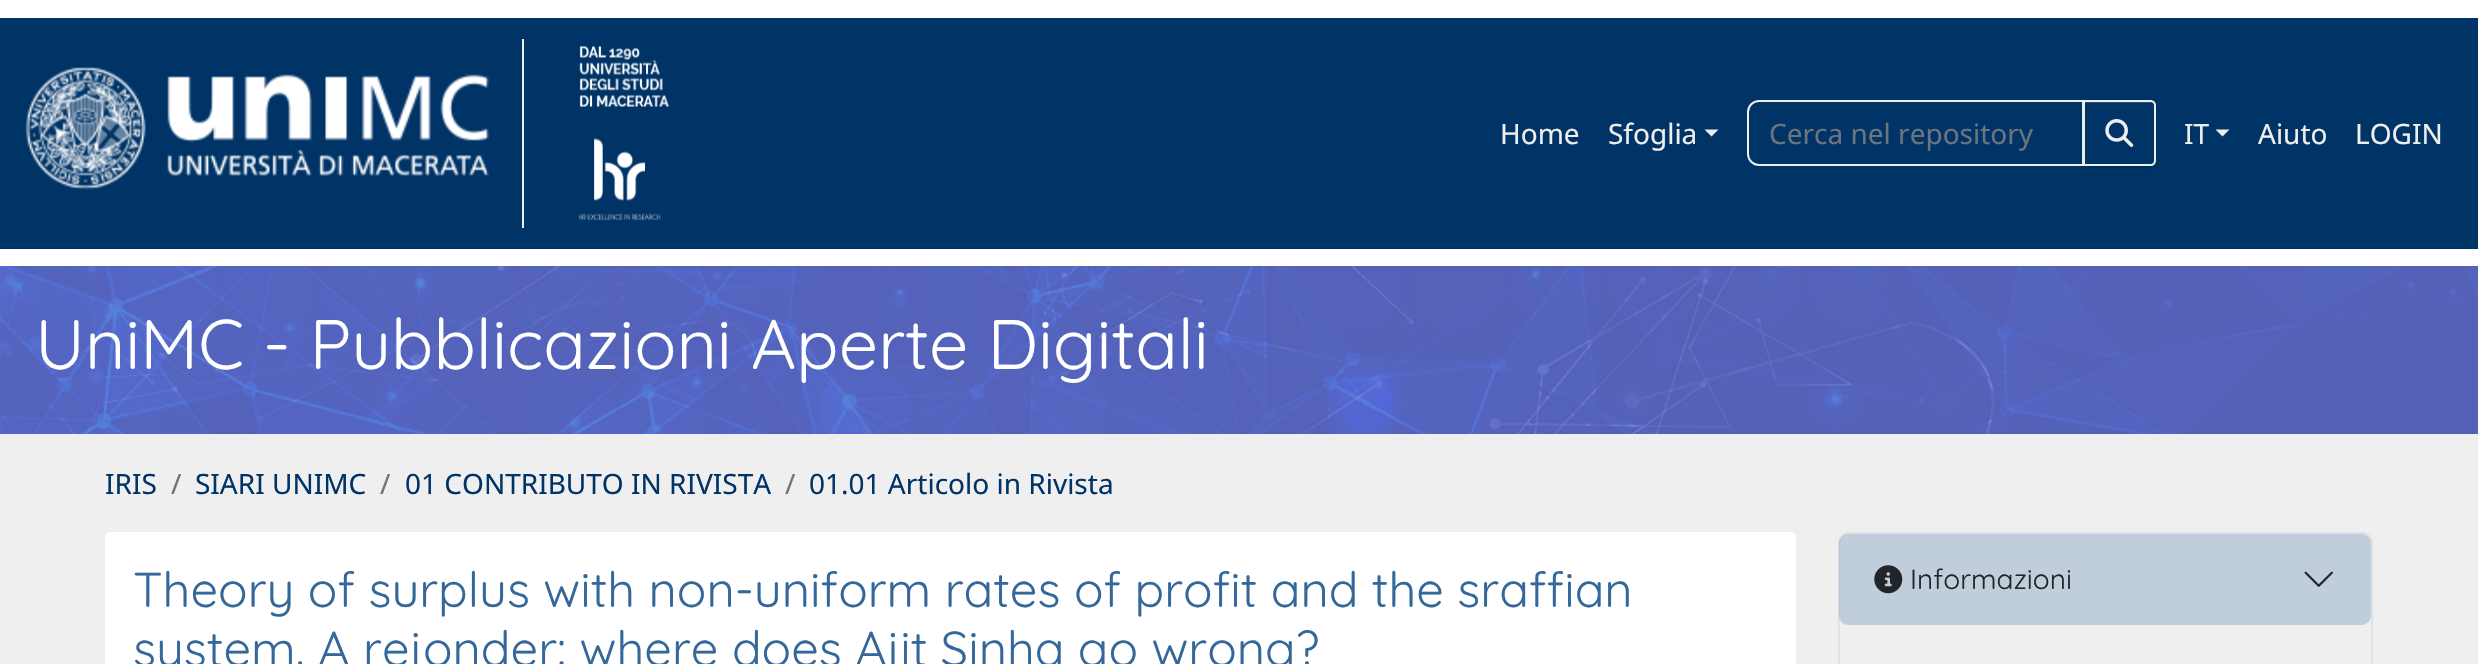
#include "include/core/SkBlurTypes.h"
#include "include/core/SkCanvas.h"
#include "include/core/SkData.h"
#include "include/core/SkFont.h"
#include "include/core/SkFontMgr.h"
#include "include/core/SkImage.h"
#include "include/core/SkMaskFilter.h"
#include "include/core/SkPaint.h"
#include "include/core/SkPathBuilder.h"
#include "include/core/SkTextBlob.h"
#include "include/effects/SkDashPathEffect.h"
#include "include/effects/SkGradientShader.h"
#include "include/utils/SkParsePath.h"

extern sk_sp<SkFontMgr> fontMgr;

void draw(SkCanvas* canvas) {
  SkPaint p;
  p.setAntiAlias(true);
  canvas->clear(SkColorSetRGB(239, 239, 239));
  p.setColor(SkColorSetRGB(0, 51, 102));
  canvas->drawRect(SkRect::MakeLTRB(0, 18, 2478, 249), p);
  p.setColor(SK_ColorWHITE);
  canvas->drawRect(SkRect::MakeLTRB(0, 0, 2478, 18), p);
  canvas->drawRect(SkRect::MakeLTRB(0, 249, 2478, 266), p);
  p.setColor(SkColorSetRGB(238, 238, 238));
  canvas->drawRect(SkRect::MakeLTRB(522, 39, 524, 228), p);
  canvas->drawImageRect(SkImages::DeferredFromEncodedData(SkData::MakeFromFileName("images/1.png")), SkRect::MakeLTRB(25, 67, 489, 190), SkSamplingOptions());
  canvas->drawImageRect(SkImages::DeferredFromEncodedData(SkData::MakeFromFileName("images/2.png")), SkRect::MakeLTRB(579, 46, 669, 221), SkSamplingOptions());
  canvas->drawPath(SkPathBuilder().moveTo(1704.5f, 129.5f).lineTo(1718.5f, 129.5f).lineTo(1711.5f, 136.5f).close().detach(), p);
  p.setStyle(SkPaint::kStroke_Style);
  p.setStrokeWidth(2);
  canvas->drawPath(SkPathBuilder().moveTo(1759, 101).lineTo(2083, 101).lineTo(2083, 165).lineTo(1759, 165).cubicTo(1753, 165, 1748, 160, 1748, 154).lineTo(1748, 112).cubicTo(1748, 106, 1753, 101, 1759, 101).close().detach(), p);
  p.setStyle(SkPaint::kFill_Style);
  p.setColor(SkColorSetARGB(18, 0, 0, 0));
  p.setMaskFilter(SkMaskFilter::MakeBlur(kNormal_SkBlurStyle, 1));
  canvas->drawRoundRect(SkRect::MakeLTRB(2083, 102, 2156, 168), 5, 5, p);
  p.setMaskFilter(nullptr);
  p.setColor(SkColorSetRGB(0, 51, 102));
  canvas->drawPath(SkPathBuilder().moveTo(2083, 100).lineTo(2151, 100).cubicTo(2154, 100, 2156, 102, 2156, 105).lineTo(2156, 161).cubicTo(2156, 164, 2154, 166, 2151, 166).lineTo(2083, 166).close().detach(), p);
  p.setColor(SkColorSetRGB(38, 82, 125));
  canvas->drawPath(SkPathBuilder().moveTo(2084, 103).lineTo(2151, 103).cubicTo(2153, 103, 2154, 105, 2154, 107).lineTo(2154, 106).cubicTo(2154, 104, 2152, 102, 2150, 102).lineTo(2084, 102).close().detach(), p);
  p.setStyle(SkPaint::kStroke_Style);
  p.setColor(SkColorSetRGB(238, 238, 238));
  canvas->drawPath(SkPathBuilder().moveTo(2084, 101).lineTo(2151, 101).cubicTo(2153, 101, 2155, 103, 2155, 105).lineTo(2155, 161).cubicTo(2155, 163, 2153, 165, 2151, 165).lineTo(2084, 165).close().detach(), p);
  canvas->drawImageRect(SkImages::DeferredFromEncodedData(SkData::MakeFromFileName("images/3.png")), SkRect::MakeLTRB(2105, 119, 2134, 147), SkSamplingOptions());
  p.setStyle(SkPaint::kFill_Style);
  canvas->drawPath(SkPathBuilder().moveTo(2215.5f, 129.5f).lineTo(2229.5f, 129.5f).lineTo(2222.5f, 136.5f).close().detach(), p);
  canvas->drawImageRect(SkImages::DeferredFromEncodedData(SkData::MakeFromFileName("images/4.png")), SkRect::MakeLTRB(0, 266, 2478, 434), SkSamplingOptions());
  p.setColor(SK_ColorWHITE);
  canvas->drawRoundRect(SkRect::MakeLTRB(105, 532, 1796, 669), 5, 5, p);
  p.setStyle(SkPaint::kStroke_Style);
  p.setColor(SkColorSetRGB(222, 226, 230));
  canvas->drawRoundRect(SkRect::MakeLTRB(1839, 533, 2372, 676), 10, 10, p);
  p.setStyle(SkPaint::kFill_Style);
  p.setColor(SkColorSetARGB(64, 52, 104, 155));
  canvas->drawRoundRect(SkRect::MakeLTRB(1839, 534, 2371, 625), 9, 9, p);
  canvas->drawImageRect(SkImages::DeferredFromEncodedData(SkData::MakeFromFileName("images/5.png")), SkRect::MakeLTRB(1874, 565, 1903, 594), SkSamplingOptions());
  canvas->drawImageRect(SkImages::DeferredFromEncodedData(SkData::MakeFromFileName("images/6.png")), SkRect::MakeLTRB(2304, 571, 2333, 587), SkSamplingOptions());
  SkFont font1(fontMgr->matchFamilyStyle("Noto Sans", SkFontStyle::Normal()), 28);
  font1.setSubpixel(true);
  p.setColor(SkColorSetRGB(238, 238, 238));
  canvas->drawString("Home", 1500, 144, font1, p);
  canvas->drawString("Sfoglia", 1608, 144, font1, p);
  p.setColor(SkColorSetRGB(108, 117, 125));
  canvas->drawString("Cerca nel repository", 1769, 144, font1, p);
  p.setColor(SkColorSetRGB(238, 238, 238));
  canvas->drawString("IT", 2184, 144, font1, p);
  canvas->drawString("Aiuto", 2258, 144, font1, p);
  canvas->drawString("LOGIN", 2355, 144, font1, p);
  SkFont font2(fontMgr->matchFamilyStyle("Quicksand", SkFontStyle(300, SkFontStyle::kNormal_Width, SkFontStyle::kUpright_Slant)), 70);
  font2.setSubpixel(true);
  p.setColor(SK_ColorWHITE);
  canvas->drawString("UniMC - Pubblicazioni Aperte Digitali", 35, 369, font2, p);
  p.setColor(SkColorSetRGB(0, 51, 102));
  canvas->drawString("IRIS", 105, 494, font1, p);
  p.setColor(SkColorSetRGB(108, 117, 125));
  canvas->drawString("/", 171, 494, font1, p);
  p.setColor(SkColorSetRGB(0, 51, 102));
  canvas->drawString("SIARI UNIMC", 195, 494, font1, p);
  p.setColor(SkColorSetRGB(108, 117, 125));
  canvas->drawString("/", 380, 494, font1, p);
  p.setColor(SkColorSetRGB(0, 51, 102));
  canvas->drawString("01 CONTRIBUTO IN RIVISTA", 405, 494, font1, p);
  p.setColor(SkColorSetRGB(108, 117, 125));
  canvas->drawString("/", 785, 494, font1, p);
  p.setColor(SkColorSetRGB(0, 51, 102));
  canvas->drawString("01.01 Articolo in Rivista", 809, 494, font1, p);
  SkFont font3(fontMgr->matchFamilyStyle("Quicksand", SkFontStyle(300, SkFontStyle::kNormal_Width, SkFontStyle::kUpright_Slant)), 49);
  font3.setSubpixel(true);
  p.setColor(SkColorSetRGB(52, 104, 155));
  canvas->drawString("Theory of surplus with non-uniform rates of profit and the sraffian", 133, 607, font3, p);
  canvas->drawString("system. A rejonder: where does Ajit Sinha go wrong?", 133, 666, font3, p);
  SkFont font4(fontMgr->matchFamilyStyle("Quicksand", SkFontStyle(300, SkFontStyle::kNormal_Width, SkFontStyle::kUpright_Slant)), 28);
  font4.setSubpixel(true);
  p.setColor(SkColorSetRGB(33, 37, 41));
  canvas->drawString("Informazioni", 1910, 589, font4, p);
}
